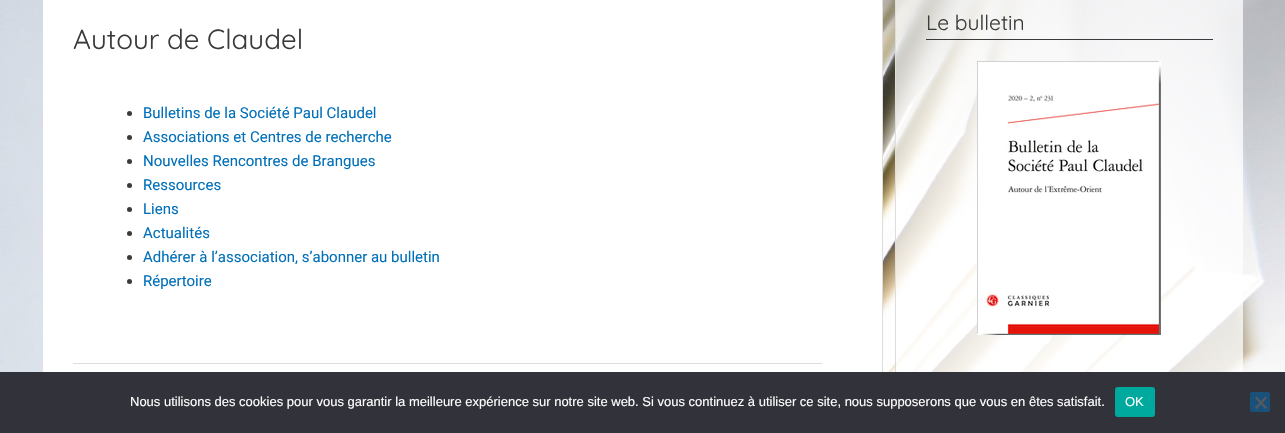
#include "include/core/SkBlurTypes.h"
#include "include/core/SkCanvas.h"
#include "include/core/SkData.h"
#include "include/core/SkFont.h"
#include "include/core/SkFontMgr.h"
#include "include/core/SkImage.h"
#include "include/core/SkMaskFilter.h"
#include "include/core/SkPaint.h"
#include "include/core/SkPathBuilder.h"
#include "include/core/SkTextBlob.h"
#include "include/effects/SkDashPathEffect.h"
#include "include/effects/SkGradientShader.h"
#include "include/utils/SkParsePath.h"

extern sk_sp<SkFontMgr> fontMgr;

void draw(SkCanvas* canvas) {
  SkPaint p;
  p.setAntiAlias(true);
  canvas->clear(SK_ColorWHITE);
  canvas->drawImageRect(SkImages::DeferredFromEncodedData(SkData::MakeFromFileName("images/1.png")), SkRect::MakeLTRB(0, 0, 1285, 372), SkSamplingOptions());
  p.setColor(SkColorSetARGB(191, 255, 255, 255));
  canvas->drawRect(SkRect::MakeLTRB(896, 0, 1243, 372), p);
  p.setColor(SkColorSetRGB(221, 221, 221));
  canvas->drawRect(SkRect::MakeLTRB(895, 0, 896, 372), p);
  p.setColor(SkColorSetRGB(58, 58, 58));
  canvas->drawRect(SkRect::MakeLTRB(926, 39, 1213, 40), p);
  canvas->drawImageRect(SkImages::DeferredFromEncodedData(SkData::MakeFromFileName("images/2.png")), SkRect::MakeLTRB(977, 61, 1161, 335), SkSamplingOptions());
  p.setColor(SK_ColorWHITE);
  canvas->drawRect(SkRect::MakeLTRB(43, 0, 882, 372), p);
  p.setColor(SkColorSetRGB(221, 221, 221));
  canvas->drawRect(SkRect::MakeLTRB(882, 0, 883, 372), p);
  p.setColor(SkColorSetRGB(58, 58, 58));
  canvas->drawCircle(129.5f, 113.5f, 2.5f, p);
  canvas->drawCircle(129.5f, 137.5f, 2.5f, p);
  canvas->drawCircle(129.5f, 161.5f, 2.5f, p);
  canvas->drawCircle(129.5f, 185.5f, 2.5f, p);
  canvas->drawCircle(129.5f, 209.5f, 2.5f, p);
  canvas->drawCircle(129.5f, 233.5f, 2.5f, p);
  canvas->drawCircle(129.5f, 257.5f, 2.5f, p);
  canvas->drawCircle(129.5f, 281.5f, 2.5f, p);
  p.setColor(SkColorSetRGB(221, 221, 221));
  canvas->drawRect(SkRect::MakeLTRB(73, 363, 822, 364), p);
  p.setColor(SkColorSetRGB(50, 50, 58));
  canvas->drawRect(SkRect::MakeLTRB(0, 372, 1285, 433), p);
  p.setColor(SkColorSetRGB(0, 169, 157));
  canvas->drawRoundRect(SkRect::MakeLTRB(1115, 387, 1155, 417), 3, 3, p);
  p.setColor(SkColorSetRGB(26, 81, 122));
  canvas->drawRoundRect(SkRect::MakeLTRB(1250, 392, 1270, 412), 2, 2, p);
  p.setColor(SkColorSetRGB(89, 89, 93));
  canvas->drawPath(SkPathBuilder().moveTo(1265.5f, 396.5f).lineTo(1267, 398).lineTo(1256.5f, 409).lineTo(1255, 407.5f).close().detach(), p);
  canvas->drawPath(SkPathBuilder().moveTo(1255, 398).lineTo(1256.5f, 396.5f).lineTo(1267, 407.5f).lineTo(1265.5f, 409).close().detach(), p);
  SkFont font1(fontMgr->matchFamilyStyle("Quicksand", SkFontStyle(300, SkFontStyle::kNormal_Width, SkFontStyle::kUpright_Slant)), 21);
  font1.setSubpixel(true);
  p.setColor(SkColorSetRGB(58, 58, 58));
  canvas->drawString("Le bulletin", 926, 30, font1, p);
  SkFont font2(fontMgr->matchFamilyStyle("Quicksand", SkFontStyle(300, SkFontStyle::kNormal_Width, SkFontStyle::kUpright_Slant)), 27.75f);
  font2.setSubpixel(true);
  canvas->drawString("Autour de Claudel", 73, 49, font2, p);
  SkFont font3(fontMgr->matchFamilyStyle("Roboto", SkFontStyle::Normal()), 15);
  font3.setSubpixel(true);
  p.setColor(SkColorSetRGB(1, 112, 185));
  canvas->drawString("Bulletins de la Société Paul Claudel", 143, 118, font3, p);
  canvas->drawString("Associations et Centres de recherche", 143, 142, font3, p);
  canvas->drawString("Nouvelles Rencontres de Brangues", 143, 166, font3, p);
  canvas->drawString("Ressources", 143, 190, font3, p);
  canvas->drawString("Liens", 143, 214, font3, p);
  canvas->drawString("Actualités", 143, 238, font3, p);
  canvas->drawString("Adhérer à l’association, s’abonner au bulletin", 143, 262, font3, p);
  canvas->drawString("Répertoire", 143, 286, font3, p);
  SkFont font4(fontMgr->matchFamilyStyle("Liberation Sans", SkFontStyle::Normal()), 13);
  font4.setSubpixel(true);
  p.setColor(SK_ColorWHITE);
  canvas->drawString("Nous utilisons des cookies pour vous garantir la meilleure expérience sur notre site web. Si vous continuez à utiliser ce site, nous supposerons que vous en êtes satisfait.", 130, 406, font4, p);
  canvas->drawString("OK", 1125, 406, font4, p);
}
